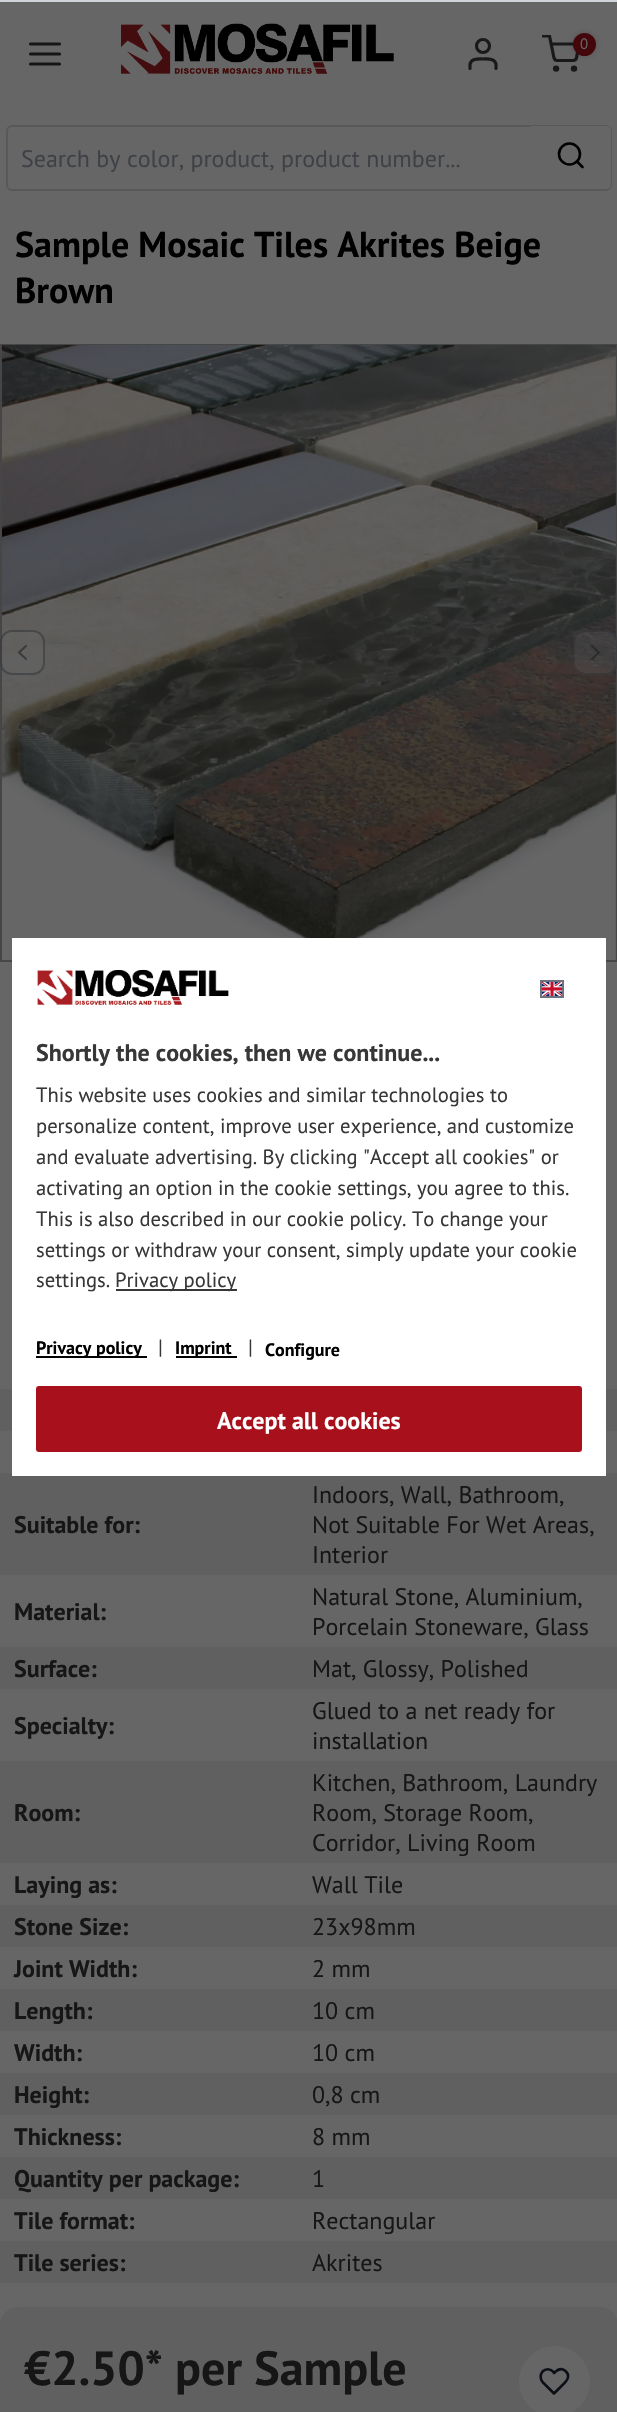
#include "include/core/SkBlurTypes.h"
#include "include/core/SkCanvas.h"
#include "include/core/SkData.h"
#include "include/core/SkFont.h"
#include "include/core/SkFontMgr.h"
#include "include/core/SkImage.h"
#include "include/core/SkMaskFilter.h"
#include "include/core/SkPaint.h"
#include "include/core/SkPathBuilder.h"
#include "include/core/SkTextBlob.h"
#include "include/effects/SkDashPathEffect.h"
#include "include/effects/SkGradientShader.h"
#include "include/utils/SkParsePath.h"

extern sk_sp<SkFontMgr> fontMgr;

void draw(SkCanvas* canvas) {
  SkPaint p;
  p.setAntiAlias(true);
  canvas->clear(SkColorSetRGB(102, 102, 102));
  p.setStyle(SkPaint::kStroke_Style);
  p.setStrokeWidth(3.2f);
  p.setStrokeCap(SkPaint::kRound_Cap);
  p.setStrokeJoin(SkPaint::kRound_Join);
  p.setColor(SkColorSetRGB(22, 22, 22));
  canvas->drawPath(SkPathBuilder().moveTo(30.5f, 54).lineTo(59.5f, 54).moveTo(30.5f, 44).lineTo(59.5f, 44).moveTo(30.5f, 64).lineTo(59.5f, 64).detach(), p);
  canvas->drawImageRect(SkImages::DeferredFromEncodedData(SkData::MakeFromFileName("images/1.png")), SkRect::MakeLTRB(121, 23, 394, 74), SkSamplingOptions());
  p.setColor(SkColorSetRGB(25, 25, 25));
  canvas->drawPath(SkPathBuilder().moveTo(496, 68.5f).lineTo(496, 64).cubicTo(494.5f, 58, 487.5f, 59, 483, 59).cubicTo(478.5f, 59, 471.5f, 58, 470, 64).lineTo(470, 68.5f).detach(), p);
  p.setStrokeCap(SkPaint::kButt_Cap);
  p.setStrokeJoin(SkPaint::kMiter_Join);
  canvas->drawCircle(483, 46, 6.5f, p);
  canvas->drawCircle(556.1f, 68.6f, 1.6f, p);
  canvas->drawCircle(574, 68.6f, 1.6f, p);
  canvas->save();
  canvas->clipRect(SkRect::MakeLTRB(542, 35, 581, 74));
  p.setStrokeCap(SkPaint::kRound_Cap);
  p.setStrokeJoin(SkPaint::kRound_Join);
  canvas->drawPath(SkPathBuilder().moveTo(543, 36).lineTo(549.5f, 36).lineTo(554, 58).cubicTo(554.5f, 59.5f, 555.5f, 60.5f, 557, 60.5f).lineTo(573, 60.5f).cubicTo(574.5f, 60.5f, 576, 59.5f, 576.5f, 58).lineTo(579, 44).lineTo(551, 44).detach(), p);
  canvas->restore();
  p.setStyle(SkPaint::kFill_Style);
  p.setColor(SkColorSetARGB(43, 0, 0, 0));
  p.setMaskFilter(SkMaskFilter::MakeBlur(kNormal_SkBlurStyle, 3));
  canvas->drawRoundRect(SkRect::MakeLTRB(573, 33, 596, 56), 11.5f, 11.5f, p);
  p.setMaskFilter(nullptr);
  p.setColor(SkColorSetRGB(67, 7, 11));
  canvas->drawCircle(584.5f, 44.5f, 10.5f, p);
  p.setStyle(SkPaint::kStroke_Style);
  p.setStrokeWidth(2);
  p.setStrokeCap(SkPaint::kButt_Cap);
  p.setStrokeJoin(SkPaint::kMiter_Join);
  canvas->drawCircle(584.5f, 44.5f, 10.5f, p);
  p.setColor(SkColorSetRGB(88, 88, 88));
  canvas->drawRoundRect(SkRect::MakeLTRB(7, 126, 611, 190), 5, 5, p);
  p.setStyle(SkPaint::kFill_Style);
  p.setColor(SkColorSetRGB(102, 102, 102));
  canvas->drawPath(SkPathBuilder().moveTo(531, 126).lineTo(606, 126).cubicTo(609, 126, 611, 128, 611, 131).lineTo(611, 184).cubicTo(611, 187, 609, 189, 606, 189).lineTo(531, 189).close().detach(), p);
  p.setStyle(SkPaint::kStroke_Style);
  p.setStrokeWidth(2.6f);
  p.setColor(SK_ColorBLACK);
  canvas->drawCircle(569.5f, 154, 10.5f, p);
  p.setStrokeCap(SkPaint::kRound_Cap);
  p.setStrokeJoin(SkPaint::kRound_Join);
  canvas->drawPath(SkPathBuilder().moveTo(582.5f, 167).lineTo(577, 161.5f).detach(), p);
  p.setStrokeWidth(2);
  p.setStrokeCap(SkPaint::kButt_Cap);
  p.setStrokeJoin(SkPaint::kMiter_Join);
  p.setColor(SkColorSetRGB(70, 70, 70));
  canvas->drawRect(SkRect::MakeLTRB(1, 345, 616, 961), p);
  canvas->drawImageRect(SkImages::DeferredFromEncodedData(SkData::MakeFromFileName("images/2.png")), SkRect::MakeLTRB(2, 344, 616, 960), SkSamplingOptions());
  p.setStyle(SkPaint::kFill_Style);
  p.setColor(SkColorSetARGB(64, 102, 102, 102));
  canvas->drawRoundRect(SkRect::MakeLTRB(0, 630, 45, 675), 12, 12, p);
  p.setStyle(SkPaint::kStroke_Style);
  p.setColor(SkColorSetARGB(128, 43, 46, 51));
  canvas->drawRoundRect(SkRect::MakeLTRB(1, 631, 44, 674), 11, 11, p);
  p.setStrokeWidth(2.2f);
  p.setStrokeCap(SkPaint::kRound_Cap);
  p.setStrokeJoin(SkPaint::kRound_Join);
  p.setColor(SkColorSetARGB(128, 22, 22, 22));
  canvas->drawPath(SkPathBuilder().moveTo(26, 659).lineTo(19, 652.5f).lineTo(26, 646).detach(), p);
  p.setStyle(SkPaint::kFill_Style);
  p.setColor(SkColorSetARGB(64, 102, 102, 102));
  canvas->drawRoundRect(SkRect::MakeLTRB(573, 630, 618, 675), 12, 12, p);
  p.setStyle(SkPaint::kStroke_Style);
  p.setStrokeWidth(2);
  p.setStrokeCap(SkPaint::kButt_Cap);
  p.setStrokeJoin(SkPaint::kMiter_Join);
  p.setColor(SkColorSetARGB(128, 43, 46, 51));
  canvas->drawRoundRect(SkRect::MakeLTRB(574, 631, 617, 674), 11, 11, p);
  p.setStrokeWidth(2.2f);
  p.setStrokeCap(SkPaint::kRound_Cap);
  p.setStrokeJoin(SkPaint::kRound_Join);
  p.setColor(SkColorSetARGB(128, 22, 22, 22));
  canvas->drawPath(SkPathBuilder().moveTo(592, 659).lineTo(599, 652.5f).lineTo(592, 646).detach(), p);
  p.setStyle(SkPaint::kFill_Style);
  p.setColor(SkColorSetRGB(96, 96, 96));
  canvas->drawRect(SkRect::MakeLTRB(0, 1389, 617, 1431), p);
  canvas->drawRect(SkRect::MakeLTRB(0, 1473, 617, 1575), p);
  canvas->drawRect(SkRect::MakeLTRB(0, 1647, 617, 1689), p);
  canvas->drawRect(SkRect::MakeLTRB(0, 1761, 617, 1863), p);
  canvas->drawRect(SkRect::MakeLTRB(0, 1905, 617, 1947), p);
  canvas->drawRect(SkRect::MakeLTRB(0, 1989, 617, 2031), p);
  canvas->drawRect(SkRect::MakeLTRB(0, 2073, 617, 2115), p);
  canvas->drawRect(SkRect::MakeLTRB(0, 2157, 617, 2199), p);
  canvas->drawRect(SkRect::MakeLTRB(0, 2241, 617, 2283), p);
  canvas->drawRoundRect(SkRect::MakeLTRB(0, 2307, 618, 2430), 18, 18, p);
  p.setColor(SkColorSetRGB(102, 102, 102));
  canvas->drawCircle(554.5f, 2381.5f, 35.5f, p);
  p.setStyle(SkPaint::kStroke_Style);
  p.setStrokeWidth(2.6f);
  p.setColor(SkColorSetRGB(12, 16, 22));
  canvas->drawPath(SkPathBuilder().moveTo(566, 2371.5f).cubicTo(562, 2367.5f, 557.5f, 2369.5f, 554, 2373).lineTo(553, 2371.5f).cubicTo(550, 2368.5f, 545.5f, 2368.5f, 542.5f, 2371.5f).cubicTo(540, 2374.5f, 540, 2379, 542.5f, 2382).lineTo(554, 2393.5f).lineTo(561, 2386.5f).cubicTo(565, 2382.5f, 571.5f, 2377.5f, 566, 2371.5f).close().detach(), p);
  p.setStyle(SkPaint::kFill_Style);
  p.setColor(SkColorSetRGB(209, 213, 219));
  canvas->drawRect(SkRect::MakeLTRB(0, 0, 617, 2), p);
  p.setColor(SK_ColorWHITE);
  canvas->drawRect(SkRect::MakeLTRB(12, 938, 606, 1476), p);
  canvas->drawImageRect(SkImages::DeferredFromEncodedData(SkData::MakeFromFileName("images/3.png")), SkRect::MakeLTRB(37, 969, 229, 1005), SkSamplingOptions());
  canvas->drawImageRect(SkImages::DeferredFromEncodedData(SkData::MakeFromFileName("images/4.png")), SkRect::MakeLTRB(542, 982, 562, 996), SkSamplingOptions());
  p.setStyle(SkPaint::kStroke_Style);
  p.setStrokeWidth(2);
  p.setStrokeCap(SkPaint::kButt_Cap);
  p.setStrokeJoin(SkPaint::kMiter_Join);
  p.setColor(SkColorSetRGB(107, 114, 128));
  canvas->drawRect(SkRect::MakeLTRB(541, 981, 563, 997), p);
  p.setStyle(SkPaint::kFill_Style);
  p.setColor(SkColorSetRGB(55, 55, 55));
  canvas->drawRect(SkRect::MakeLTRB(116, 1289, 237, 1291), p);
  p.setColor(SK_ColorBLACK);
  canvas->drawRect(SkRect::MakeLTRB(36, 1356, 147, 1358), p);
  canvas->drawRect(SkRect::MakeLTRB(176, 1356, 237, 1358), p);
  p.setColor(SkColorSetRGB(168, 17, 28));
  canvas->drawRoundRect(SkRect::MakeLTRB(37, 1387, 581, 1451), 2, 2, p);
  p.setStyle(SkPaint::kStroke_Style);
  canvas->drawRoundRect(SkRect::MakeLTRB(37, 1387, 581, 1451), 2, 2, p);
  SkFont font1(fontMgr->matchFamilyStyle("PT Sans", SkFontStyle::Normal()), 15);
  font1.setSubpixel(true);
  p.setStyle(SkPaint::kFill_Style);
  p.setColor(SkColorSetRGB(102, 102, 102));
  canvas->drawString("0", 580, 49, font1, p);
  SkFont font2(fontMgr->matchFamilyStyle("PT Sans", SkFontStyle::Normal()), 24);
  font2.setSubpixel(true);
  p.setColor(SkColorSetRGB(62, 65, 70));
  canvas->drawString("Search by color, product, product number...", 21, 167, font2, p);
  SkFont font3(fontMgr->matchFamilyStyle("PT Sans", SkFontStyle::Bold()), 36);
  font3.setSubpixel(true);
  p.setColor(SK_ColorBLACK);
  canvas->drawString("Sample Mosaic Tiles Akrites Beige", 15, 257, font3, p);
  canvas->drawString("Brown", 15, 303, font3, p);
  SkFont font4(fontMgr->matchFamilyStyle("PT Sans", SkFontStyle::Bold()), 24);
  font4.setSubpixel(true);
  p.setColor(SkColorSetRGB(22, 22, 22));
  canvas->drawString("Suitable for:", 14, 1533, font4, p);
  canvas->drawString("Indoors, Wall, Bathroom,", 312, 1503, font2, p);
  canvas->drawString("Not Suitable For Wet Areas,", 312, 1533, font2, p);
  canvas->drawString("Interior", 312, 1563, font2, p);
  canvas->drawString("Material:", 14, 1620, font4, p);
  canvas->drawString("Natural Stone, Aluminium,", 312, 1605, font2, p);
  canvas->drawString("Porcelain Stoneware, Glass", 312, 1635, font2, p);
  canvas->drawString("Surface:", 14, 1677, font4, p);
  canvas->drawString("Mat, Glossy, Polished", 312, 1677, font2, p);
  canvas->drawString("Specialty:", 14, 1734, font4, p);
  canvas->drawString("Glued to a net ready for", 312, 1719, font2, p);
  canvas->drawString("installation", 312, 1749, font2, p);
  canvas->drawString("Room:", 14, 1821, font4, p);
  canvas->drawString("Kitchen, Bathroom, Laundry", 312, 1791, font2, p);
  canvas->drawString("Room, Storage Room,", 312, 1821, font2, p);
  canvas->drawString("Corridor, Living Room", 312, 1851, font2, p);
  canvas->drawString("Laying as:", 14, 1893, font4, p);
  canvas->drawString("Wall Tile", 312, 1893, font2, p);
  canvas->drawString("Stone Size:", 14, 1935, font4, p);
  canvas->drawString("23x98mm", 312, 1935, font2, p);
  canvas->drawString("Joint Width:", 14, 1977, font4, p);
  canvas->drawString("2 mm", 312, 1977, font2, p);
  canvas->drawString("Length:", 14, 2019, font4, p);
  canvas->drawString("10 cm", 312, 2019, font2, p);
  canvas->drawString("Width:", 14, 2061, font4, p);
  canvas->drawString("10 cm", 312, 2061, font2, p);
  canvas->drawString("Height:", 14, 2103, font4, p);
  canvas->drawString("0,8 cm", 312, 2103, font2, p);
  canvas->drawString("Thickness:", 14, 2145, font4, p);
  canvas->drawString("8 mm", 312, 2145, font2, p);
  canvas->drawString("Quantity per package:", 14, 2187, font4, p);
  canvas->drawString("1", 312, 2187, font2, p);
  canvas->drawString("Tile format:", 14, 2229, font4, p);
  canvas->drawString("Rectangular", 312, 2229, font2, p);
  canvas->drawString("Tile series:", 14, 2271, font4, p);
  canvas->drawString("Akrites", 312, 2271, font2, p);
  SkFont font5(fontMgr->matchFamilyStyle("PT Sans", SkFontStyle::Bold()), 48);
  font5.setSubpixel(true);
  canvas->drawString("€2.50* per Sample", 24, 2385, font5, p);
  p.setColor(SkColorSetRGB(55, 55, 55));
  canvas->drawString("Shortly the cookies, then we continue...", 36, 1061, font4, p);
  SkFont font6(fontMgr->matchFamilyStyle("PT Sans", SkFontStyle::Normal()), 20.6f);
  font6.setSubpixel(true);
  canvas->drawString("This website uses cookies and similar technologies to", 36, 1102, font6, p);
  canvas->drawString("personalize content, improve user experience, and customize", 36, 1133, font6, p);
  canvas->drawString("and evaluate advertising. By clicking \"Accept all cookies\" or", 36, 1164, font6, p);
  canvas->drawString("activating an option in the cookie settings, you agree to this.", 36, 1195, font6, p);
  canvas->drawString("This is also described in our cookie policy. To change your", 36, 1226, font6, p);
  canvas->drawString("settings or withdraw your consent, simply update your cookie", 36, 1257, font6, p);
  canvas->drawString("settings.", 36, 1287, font6, p);
  canvas->drawString("Privacy policy", 115, 1287, font6, p);
  SkFont font7(fontMgr->matchFamilyStyle("PT Sans", SkFontStyle::Bold()), 18);
  font7.setSubpixel(true);
  p.setColor(SK_ColorBLACK);
  canvas->drawString("Privacy policy", 36, 1354, font7, p);
  p.setColor(SkColorSetRGB(55, 55, 55));
  canvas->drawString("|", 158, 1354, font6, p);
  p.setColor(SK_ColorBLACK);
  canvas->drawString("Imprint", 175, 1354, font7, p);
  p.setColor(SkColorSetRGB(55, 55, 55));
  canvas->drawString("|", 248, 1354, font6, p);
  p.setColor(SK_ColorBLACK);
  canvas->drawString("Configure", 265, 1356, font7, p);
  p.setColor(SK_ColorWHITE);
  canvas->drawString("Accept all cookies", 217, 1429, font4, p);
}
